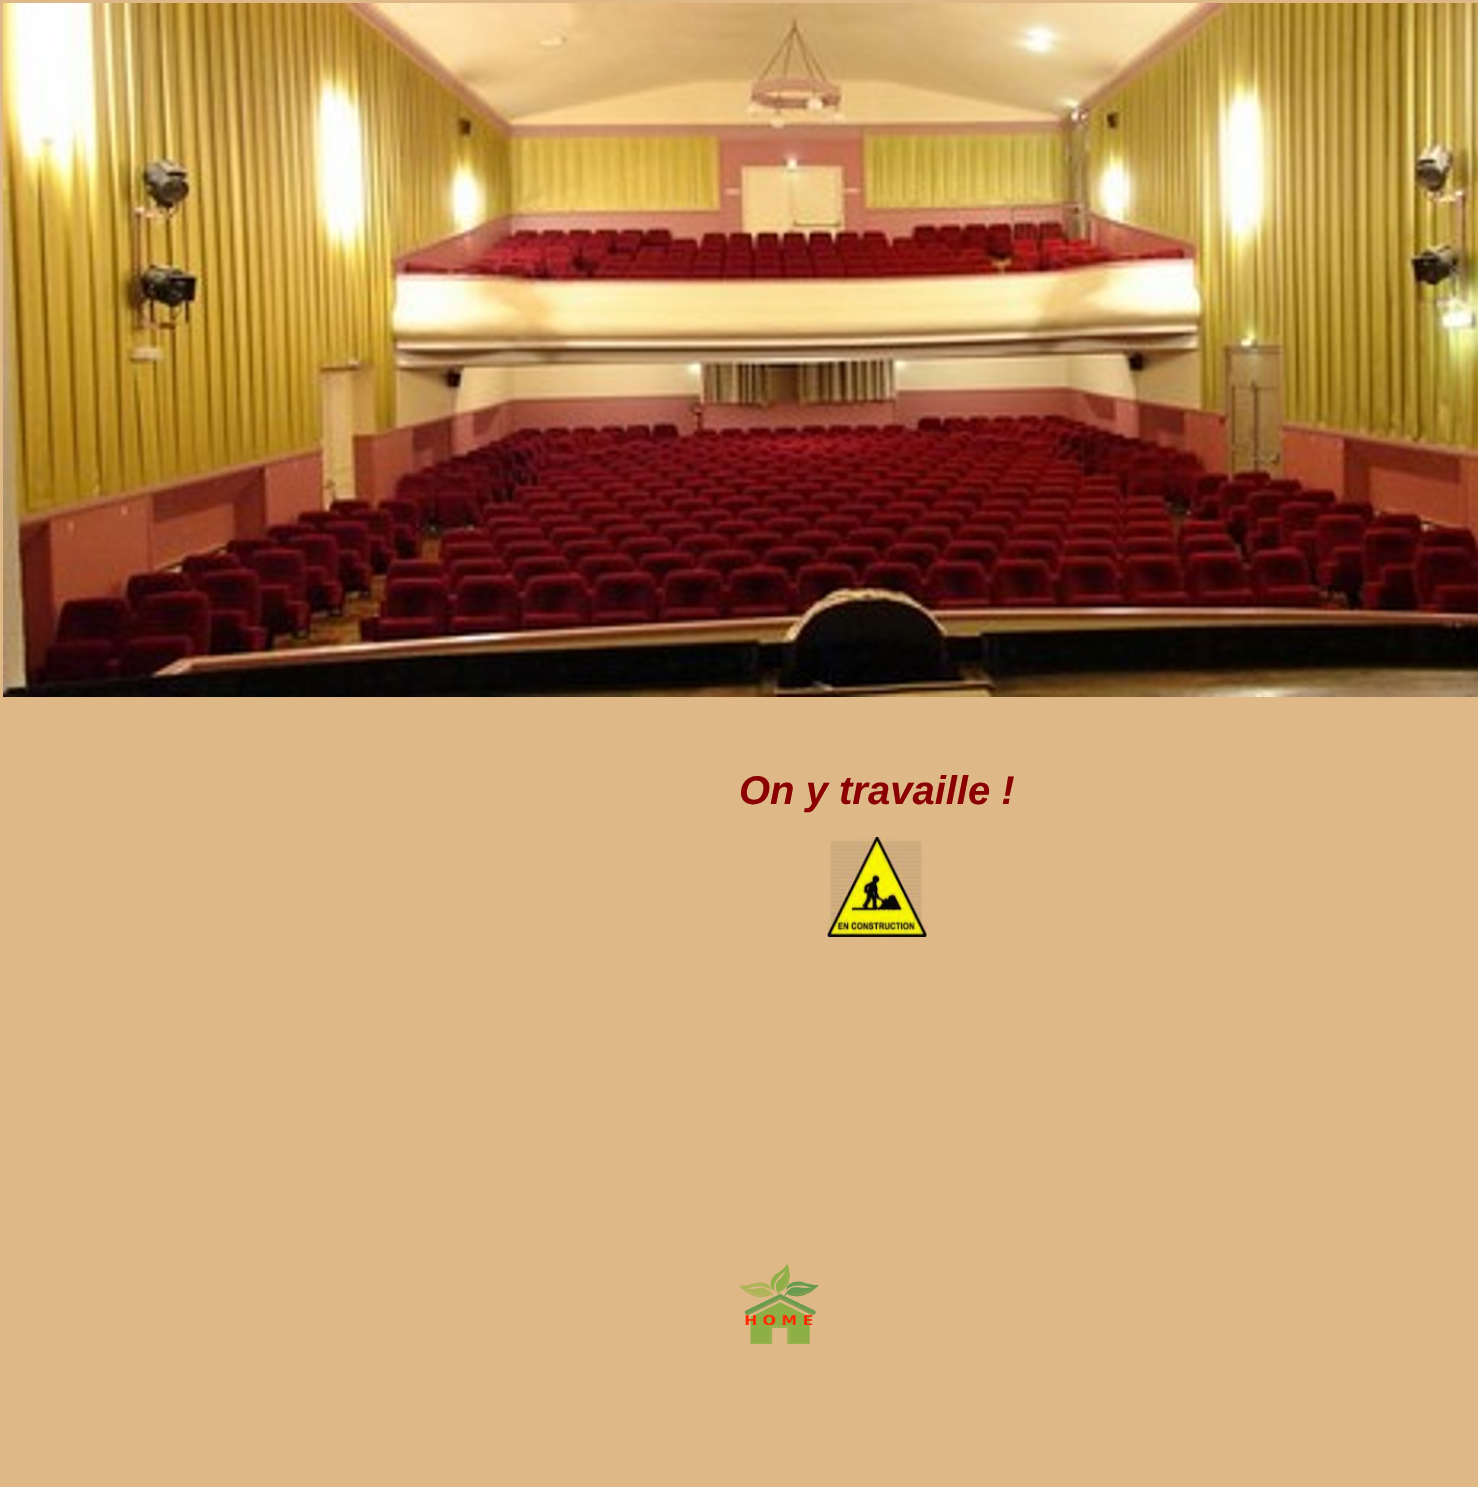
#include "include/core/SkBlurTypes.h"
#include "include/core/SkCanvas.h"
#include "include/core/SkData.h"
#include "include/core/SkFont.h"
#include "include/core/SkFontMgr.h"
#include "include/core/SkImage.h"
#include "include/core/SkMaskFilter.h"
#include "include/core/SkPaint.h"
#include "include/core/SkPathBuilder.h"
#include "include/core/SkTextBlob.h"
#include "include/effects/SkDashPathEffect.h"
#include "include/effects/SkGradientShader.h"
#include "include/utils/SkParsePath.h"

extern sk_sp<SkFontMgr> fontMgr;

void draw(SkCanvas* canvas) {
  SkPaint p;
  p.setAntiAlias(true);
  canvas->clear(SkColorSetRGB(222, 184, 135));
  canvas->drawImageRect(SkImages::DeferredFromEncodedData(SkData::MakeFromFileName("images/1.png")), SkRect::MakeLTRB(3, 3, 1478, 697), SkSamplingOptions());
  canvas->drawImageRect(SkImages::DeferredFromEncodedData(SkData::MakeFromFileName("images/2.png")), SkRect::MakeLTRB(827, 837, 927, 937), SkSamplingOptions());
  canvas->drawImageRect(SkImages::DeferredFromEncodedData(SkData::MakeFromFileName("images/3.png")), SkRect::MakeLTRB(739, 1264, 819, 1344), SkSamplingOptions());
  SkFont font1(fontMgr->matchFamilyStyle("Liberation Sans", SkFontStyle::BoldItalic()), 40);
  font1.setSubpixel(true);
  p.setColor(SkColorSetRGB(139, 0, 0));
  canvas->drawString("On y travaille !", 739, 804, font1, p);
}
